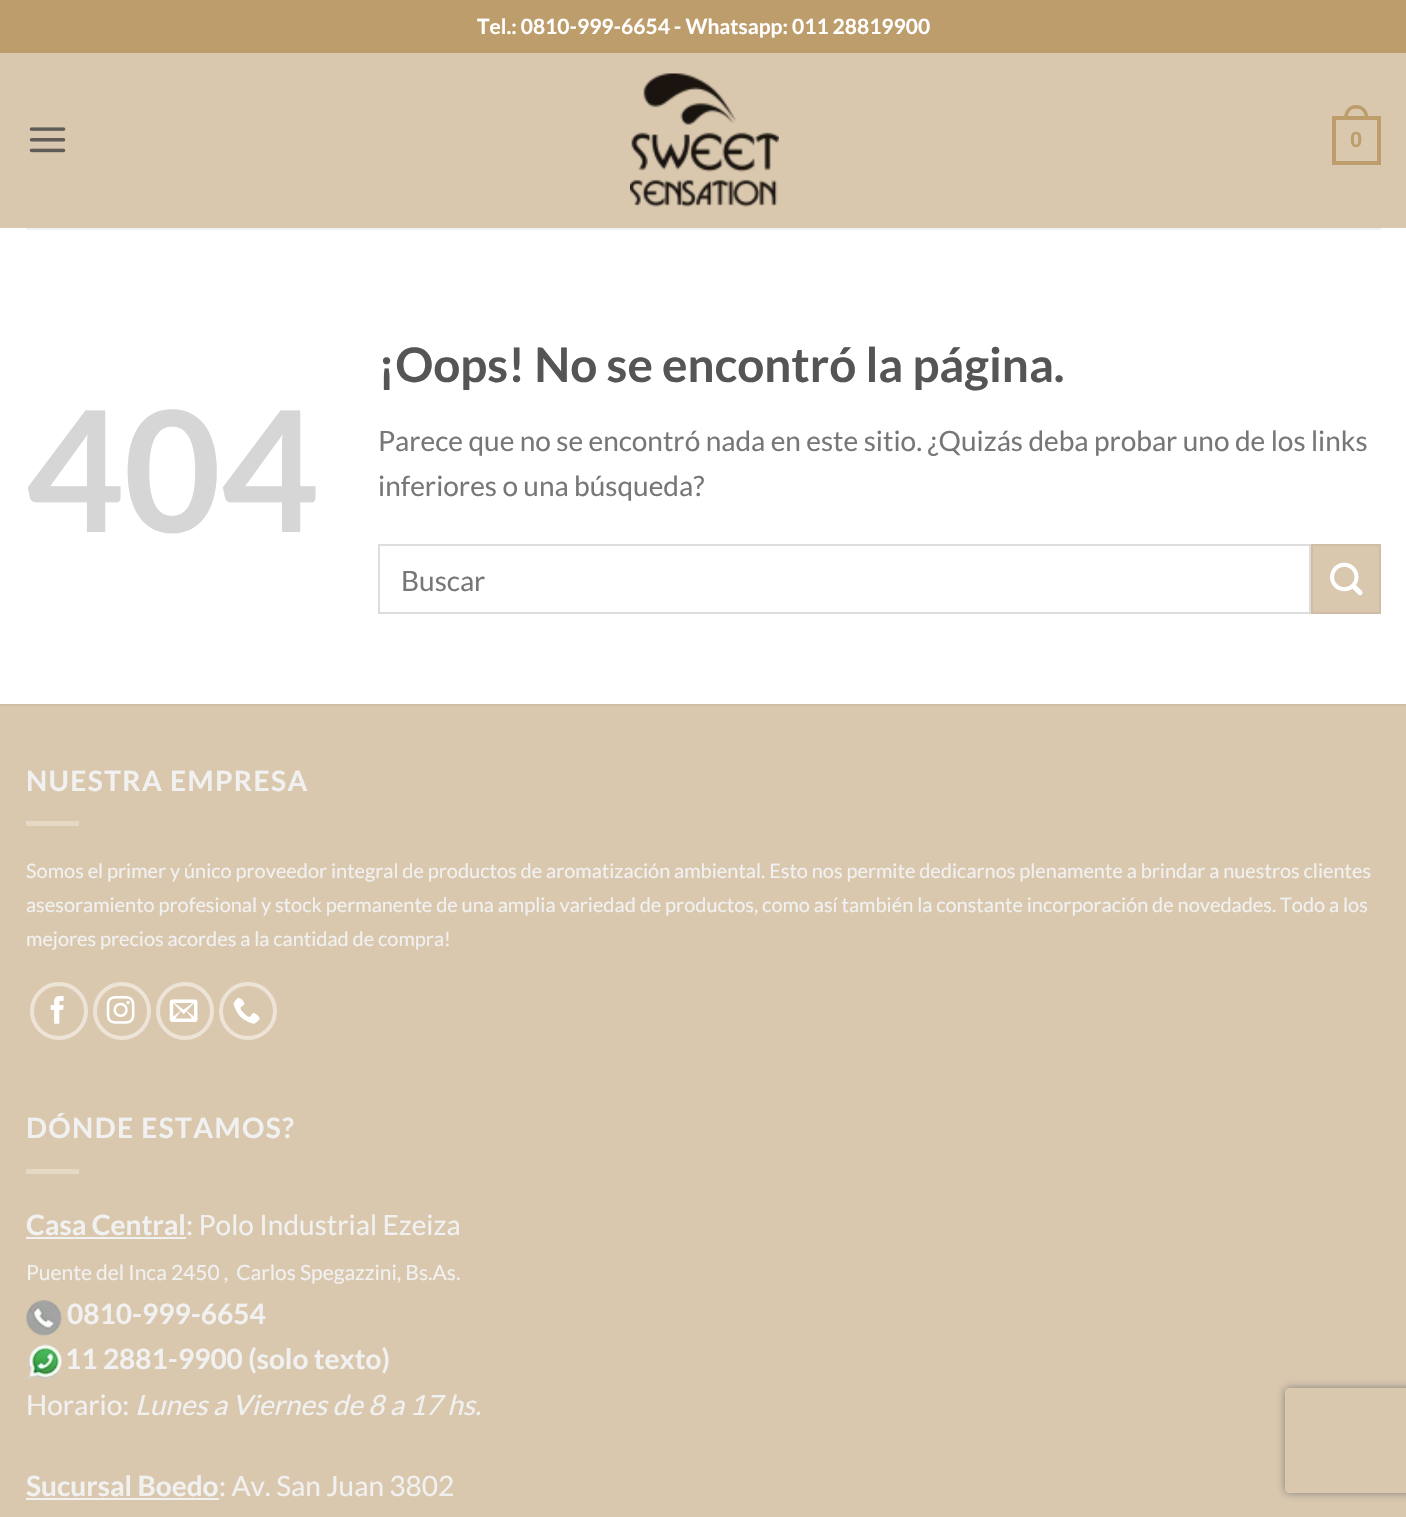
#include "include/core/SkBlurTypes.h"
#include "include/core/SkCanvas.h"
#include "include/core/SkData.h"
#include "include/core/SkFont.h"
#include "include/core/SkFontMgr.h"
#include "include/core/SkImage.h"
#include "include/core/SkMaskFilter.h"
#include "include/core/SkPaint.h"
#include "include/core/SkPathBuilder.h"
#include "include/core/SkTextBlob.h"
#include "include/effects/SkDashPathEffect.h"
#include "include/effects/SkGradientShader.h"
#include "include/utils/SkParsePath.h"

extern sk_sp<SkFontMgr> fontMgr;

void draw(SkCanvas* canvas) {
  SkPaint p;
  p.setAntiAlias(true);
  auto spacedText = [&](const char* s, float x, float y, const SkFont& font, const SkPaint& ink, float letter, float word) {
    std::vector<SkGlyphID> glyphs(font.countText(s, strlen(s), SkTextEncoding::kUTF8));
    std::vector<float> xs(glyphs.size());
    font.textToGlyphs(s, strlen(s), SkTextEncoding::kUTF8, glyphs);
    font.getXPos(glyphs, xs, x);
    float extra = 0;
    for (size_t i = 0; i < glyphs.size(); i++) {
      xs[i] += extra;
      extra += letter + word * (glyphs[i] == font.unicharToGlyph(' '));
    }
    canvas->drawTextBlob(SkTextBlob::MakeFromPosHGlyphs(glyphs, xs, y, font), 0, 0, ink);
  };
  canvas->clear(SK_ColorWHITE);
  p.setColor(SkColorSetRGB(188, 157, 107));
  canvas->drawRect(SkRect::MakeLTRB(0, 0, 1406, 53), p);
  p.setColor(SkColorSetRGB(218, 200, 174));
  canvas->drawRect(SkRect::MakeLTRB(0, 53, 1406, 228), p);
  canvas->drawImageRect(SkImages::DeferredFromEncodedData(SkData::MakeFromFileName("images/1.png")), SkRect::MakeLTRB(29, 127, 66, 153), SkSamplingOptions());
  canvas->drawImageRect(SkImages::DeferredFromEncodedData(SkData::MakeFromFileName("images/2.png")), SkRect::MakeLTRB(630, 73, 779, 207), SkSamplingOptions());
  p.setStyle(SkPaint::kStroke_Style);
  p.setStrokeWidth(4);
  p.setColor(SkColorSetRGB(188, 157, 107));
  canvas->drawRect(SkRect::MakeLTRB(1334, 118, 1379, 163), p);
  p.setStyle(SkPaint::kFill_Style);
  canvas->drawPath(SkPathBuilder(SkPathFillType::kEvenOdd).moveTo(1356, 105).cubicTo(1364.5f, 105, 1368.5f, 111.5f, 1368.5f, 119).lineTo(1344, 119).cubicTo(1344, 111.5f, 1348, 105, 1356, 105).close().moveTo(1356, 108.5f).cubicTo(1362.5f, 108.5f, 1365, 113.5f, 1365, 119).lineTo(1347.5f, 119).cubicTo(1347.5f, 113.5f, 1350, 108.5f, 1356, 108.5f).close().detach(), p);
  p.setColor(SkColorSetRGB(241, 241, 241));
  canvas->drawRect(SkRect::MakeLTRB(26, 228, 1381, 230), p);
  p.setStyle(SkPaint::kStroke_Style);
  p.setStrokeWidth(2);
  p.setColor(SkColorSetRGB(221, 221, 221));
  canvas->drawRect(SkRect::MakeLTRB(379, 545, 1310, 613), p);
  p.setStyle(SkPaint::kFill_Style);
  p.setColor(SkColorSetRGB(218, 200, 174));
  canvas->drawRect(SkRect::MakeLTRB(1312, 545, 1380, 613), p);
  p.setStyle(SkPaint::kStroke_Style);
  p.setColor(SkColorSetRGB(207, 190, 165));
  canvas->drawRect(SkRect::MakeLTRB(1312, 545, 1380, 613), p);
  canvas->drawImageRect(SkImages::DeferredFromEncodedData(SkData::MakeFromFileName("images/3.png")), SkRect::MakeLTRB(1330, 562, 1363, 596), SkSamplingOptions());
  p.setStyle(SkPaint::kFill_Style);
  p.setColor(SkColorSetRGB(218, 200, 174));
  canvas->drawRect(SkRect::MakeLTRB(0, 706, 1406, 1517), p);
  p.setColor(SkColorSetRGB(207, 190, 165));
  canvas->drawRect(SkRect::MakeLTRB(0, 704, 1406, 706), p);
  p.setColor(SkColorSetRGB(229, 217, 198));
  canvas->drawRect(SkRect::MakeLTRB(26, 821, 79, 826), p);
  p.setStyle(SkPaint::kStroke_Style);
  p.setStrokeWidth(4);
  p.setColor(SkColorSetRGB(237, 228, 215));
  canvas->drawCircle(59, 1011, 27, p);
  canvas->drawImageRect(SkImages::DeferredFromEncodedData(SkData::MakeFromFileName("images/4.png")), SkRect::MakeLTRB(50, 996, 64, 1024), SkSamplingOptions());
  canvas->drawCircle(122, 1011, 27, p);
  canvas->drawImageRect(SkImages::DeferredFromEncodedData(SkData::MakeFromFileName("images/5.png")), SkRect::MakeLTRB(106, 996, 135, 1024), SkSamplingOptions());
  canvas->drawCircle(185, 1011, 27, p);
  canvas->drawImageRect(SkImages::DeferredFromEncodedData(SkData::MakeFromFileName("images/6.png")), SkRect::MakeLTRB(169, 999, 198, 1022), SkSamplingOptions());
  canvas->drawCircle(248, 1011, 27, p);
  canvas->drawImageRect(SkImages::DeferredFromEncodedData(SkData::MakeFromFileName("images/7.png")), SkRect::MakeLTRB(233, 997, 260, 1024), SkSamplingOptions());
  p.setStyle(SkPaint::kFill_Style);
  p.setColor(SkColorSetRGB(229, 217, 198));
  canvas->drawRect(SkRect::MakeLTRB(26, 1169, 79, 1174), p);
  p.setColor(SkColorSetRGB(241, 241, 241));
  canvas->drawRect(SkRect::MakeLTRB(26, 1237, 186, 1239), p);
  canvas->drawImageRect(SkImages::DeferredFromEncodedData(SkData::MakeFromFileName("images/8.png")), SkRect::MakeLTRB(26, 1300, 62, 1336), SkSamplingOptions());
  canvas->drawImageRect(SkImages::DeferredFromEncodedData(SkData::MakeFromFileName("images/9.png")), SkRect::MakeLTRB(27, 1343, 63, 1380), SkSamplingOptions());
  canvas->drawRect(SkRect::MakeLTRB(26, 1498, 219, 1500), p);
  canvas->save();
  canvas->clipPath(SkPathBuilder(SkPathFillType::kEvenOdd).moveTo(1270, 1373).lineTo(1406, 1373).lineTo(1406, 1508).lineTo(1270, 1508).close().moveTo(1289, 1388).lineTo(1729, 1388).cubicTo(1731, 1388, 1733, 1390, 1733, 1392).lineTo(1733, 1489).cubicTo(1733, 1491, 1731, 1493, 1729, 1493).lineTo(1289, 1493).cubicTo(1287, 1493, 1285, 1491, 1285, 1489).lineTo(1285, 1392).cubicTo(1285, 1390, 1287, 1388, 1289, 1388).close().detach(), true);
  p.setColor(SkColorSetRGB(128, 128, 128));
  p.setMaskFilter(SkMaskFilter::MakeBlur(kNormal_SkBlurStyle, 4.5f));
  canvas->drawRoundRect(SkRect::MakeLTRB(1285, 1388, 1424, 1493), 4, 4, p);
  p.setMaskFilter(nullptr);
  canvas->restore();
  SkFont font1(fontMgr->matchFamilyStyle("Lato", SkFontStyle::Bold()), 21);
  font1.setSubpixel(true);
  p.setColor(SK_ColorWHITE);
  canvas->drawString("Tel.: 0810-999-6654 - Whatsapp: 011 28819900", 477, 34, font1, p);
  SkFont font2(fontMgr->matchFamilyStyle("Liberation Sans", SkFontStyle::Bold()), 22);
  font2.setSubpixel(true);
  p.setColor(SkColorSetRGB(188, 157, 107));
  canvas->drawString("0", 1350, 147, font2, p);
  SkFont font3(fontMgr->matchFamilyStyle("Lato", SkFontStyle::Bold()), 168);
  font3.setSubpixel(true);
  p.setColor(SkColorSetRGB(214, 214, 214));
  canvas->drawString("404", 26, 532, font3, p);
  SkFont font4(fontMgr->matchFamilyStyle("Lato", SkFontStyle::Bold()), 47.6f);
  font4.setSubpixel(true);
  p.setColor(SkColorSetRGB(85, 85, 85));
  canvas->drawString("¡Oops! No se encontró la página.", 378, 382, font4, p);
  SkFont font5(fontMgr->matchFamilyStyle("Lato", SkFontStyle::Normal()), 28);
  font5.setSubpixel(true);
  p.setColor(SkColorSetRGB(119, 119, 119));
  canvas->drawString("Parece que no se encontró nada en este sitio. ¿Quizás deba probar uno de los links", 378, 451, font5, p);
  canvas->drawString("inferiores o una búsqueda?", 378, 496, font5, p);
  canvas->drawString("Buscar", 401, 591, font5, p);
  SkFont font6(fontMgr->matchFamilyStyle("Lato", SkFontStyle::Bold()), 28);
  font6.setSubpixel(true);
  p.setColor(SkColorSetRGB(241, 241, 241));
  spacedText("NUESTRA EMPRESA", 26, 791, font6, p, 1.4f, 0);
  SkFont font7(fontMgr->matchFamilyStyle("Lato", SkFontStyle::Normal()), 19.95f);
  font7.setSubpixel(true);
  canvas->drawString("Somos el primer y único proveedor integral de productos de aromatización ambiental. Esto nos permite dedicarnos plenamente a brindar a nuestros clientes", 26, 878, font7, p);
  canvas->drawString("asesoramiento profesional y stock permanente de una amplia variedad de productos, como así también la constante incorporación de novedades. Todo a los", 26, 912, font7, p);
  canvas->drawString("mejores precios acordes a la cantidad de compra!", 26, 946, font7, p);
  spacedText("DÓNDE ESTAMOS?", 26, 1138, font6, p, 1.4f, 0);
  canvas->drawString("Casa Central", 26, 1235, font6, p);
  canvas->drawString(": Polo Industrial Ezeiza", 186, 1235, font5, p);
  SkFont font8(fontMgr->matchFamilyStyle("Lato", SkFontStyle::Normal()), 21);
  font8.setSubpixel(true);
  canvas->drawString("Puente del Inca 2450 ,  Carlos Spegazzini, Bs.As.", 26, 1280, font8, p);
  canvas->drawString("0810-999-6654", 67, 1324, font6, p);
  canvas->drawString("11 2881-9900 (solo texto)", 65, 1369, font6, p);
  canvas->drawString("Horario:", 26, 1415, font5, p);
  SkFont font9(fontMgr->matchFamilyStyle("Lato", SkFontStyle::Italic()), 28);
  font9.setSubpixel(true);
  canvas->drawString("Lunes a Viernes de 8 a 17 hs.", 135, 1415, font9, p);
  canvas->drawString("Sucursal Boedo", 26, 1496, font6, p);
  canvas->drawString(": Av. San Juan 3802", 219, 1496, font5, p);
}
